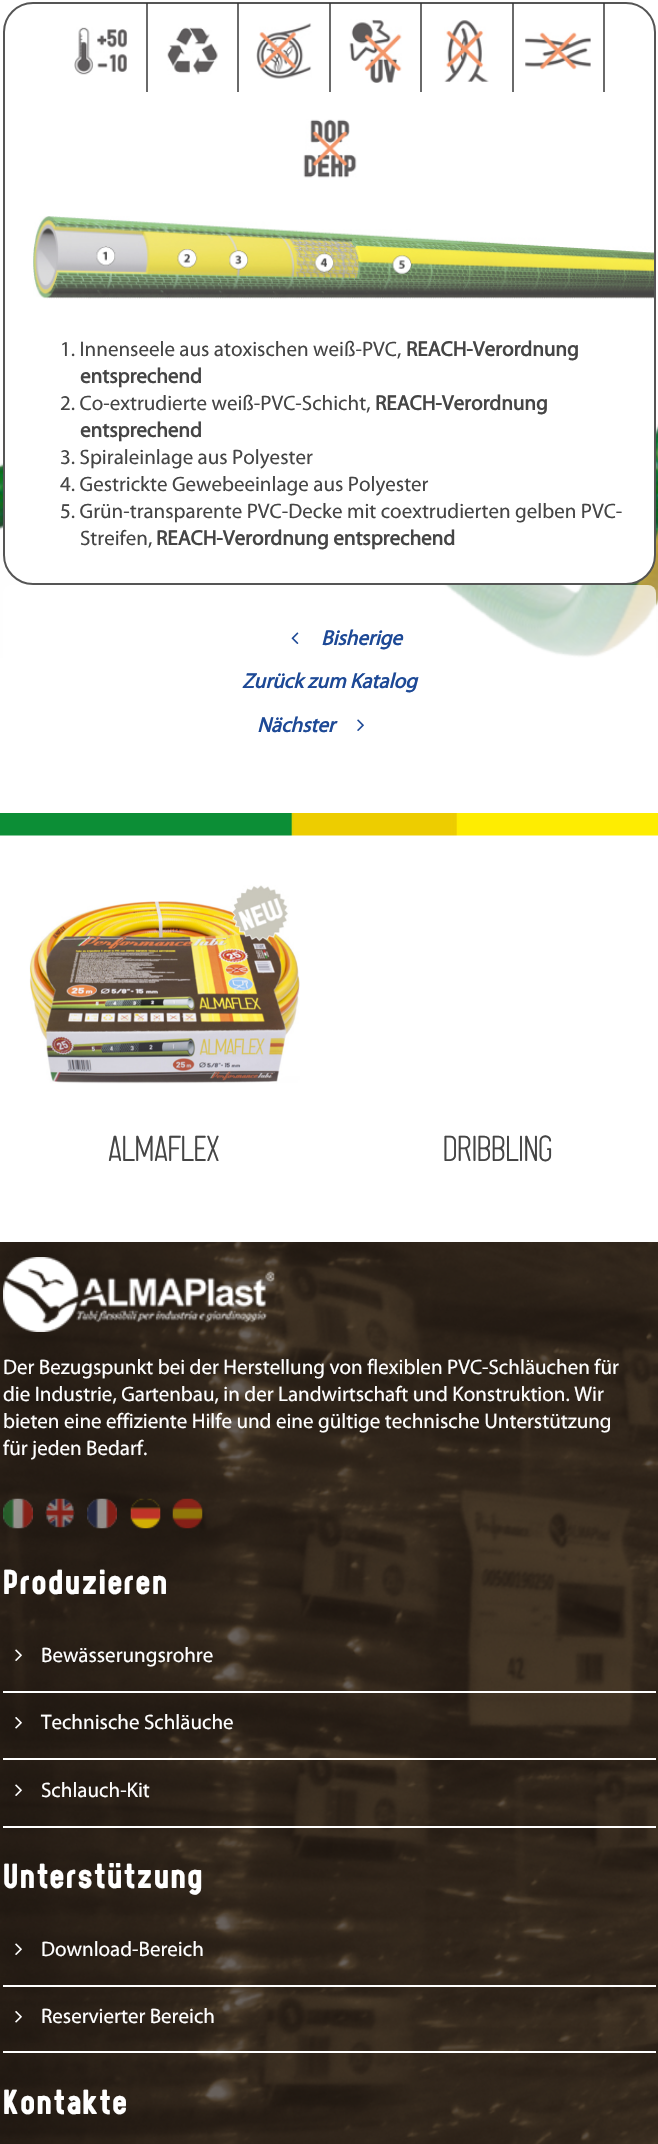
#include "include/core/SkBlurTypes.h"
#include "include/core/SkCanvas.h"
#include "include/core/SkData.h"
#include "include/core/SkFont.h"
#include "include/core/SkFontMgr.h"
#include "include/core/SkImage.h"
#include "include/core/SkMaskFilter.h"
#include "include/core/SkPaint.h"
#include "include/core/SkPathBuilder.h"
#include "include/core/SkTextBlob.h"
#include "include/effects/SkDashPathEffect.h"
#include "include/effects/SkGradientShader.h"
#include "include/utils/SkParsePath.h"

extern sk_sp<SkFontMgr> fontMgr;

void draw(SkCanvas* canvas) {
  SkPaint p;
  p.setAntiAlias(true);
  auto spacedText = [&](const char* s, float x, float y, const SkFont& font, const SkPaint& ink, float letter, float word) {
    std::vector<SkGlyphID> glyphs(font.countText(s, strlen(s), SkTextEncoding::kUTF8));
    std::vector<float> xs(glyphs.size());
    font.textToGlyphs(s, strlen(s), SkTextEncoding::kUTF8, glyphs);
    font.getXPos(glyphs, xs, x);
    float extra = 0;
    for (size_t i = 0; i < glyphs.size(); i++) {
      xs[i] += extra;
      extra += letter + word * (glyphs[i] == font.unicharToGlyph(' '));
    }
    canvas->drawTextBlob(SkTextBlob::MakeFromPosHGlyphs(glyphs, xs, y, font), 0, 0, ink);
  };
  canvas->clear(SK_ColorWHITE);
  canvas->drawImageRect(SkImages::DeferredFromEncodedData(SkData::MakeFromFileName("images/1.png")), SkRect::MakeLTRB(0, 424, 658, 658), SkSamplingOptions());
  p.setColor(SK_ColorWHITE);
  canvas->drawRoundRect(SkRect::MakeLTRB(4, 3, 655, 584), 29, 29, p);
  p.setStyle(SkPaint::kStroke_Style);
  p.setStrokeWidth(2);
  p.setColor(SkColorSetRGB(85, 85, 85));
  canvas->drawRoundRect(SkRect::MakeLTRB(4, 3, 655, 584), 29, 29, p);
  canvas->drawImageRect(SkImages::DeferredFromEncodedData(SkData::MakeFromFileName("images/2.png")), SkRect::MakeLTRB(74, 27, 128, 75), SkSamplingOptions());
  p.setStyle(SkPaint::kFill_Style);
  p.setColor(SkColorSetARGB(186, 51, 51, 51));
  canvas->drawRect(SkRect::MakeLTRB(146, 3, 148, 92), p);
  canvas->drawImageRect(SkImages::DeferredFromEncodedData(SkData::MakeFromFileName("images/3.png")), SkRect::MakeLTRB(167, 27, 218, 75), SkSamplingOptions());
  canvas->drawRect(SkRect::MakeLTRB(237, 3, 239, 92), p);
  canvas->drawImageRect(SkImages::DeferredFromEncodedData(SkData::MakeFromFileName("images/4.png")), SkRect::MakeLTRB(256, 23, 312, 79), SkSamplingOptions());
  canvas->drawRect(SkRect::MakeLTRB(329, 3, 331, 92), p);
  canvas->drawImageRect(SkImages::DeferredFromEncodedData(SkData::MakeFromFileName("images/5.png")), SkRect::MakeLTRB(349, 19, 402, 83), SkSamplingOptions());
  canvas->drawRect(SkRect::MakeLTRB(420, 3, 422, 92), p);
  canvas->drawImageRect(SkImages::DeferredFromEncodedData(SkData::MakeFromFileName("images/6.png")), SkRect::MakeLTRB(444, 20, 489, 82), SkSamplingOptions());
  canvas->drawRect(SkRect::MakeLTRB(512, 3, 514, 92), p);
  canvas->drawImageRect(SkImages::DeferredFromEncodedData(SkData::MakeFromFileName("images/7.png")), SkRect::MakeLTRB(525, 32, 591, 70), SkSamplingOptions());
  canvas->drawRect(SkRect::MakeLTRB(603, 3, 605, 92), p);
  canvas->drawImageRect(SkImages::DeferredFromEncodedData(SkData::MakeFromFileName("images/8.png")), SkRect::MakeLTRB(303, 119, 357, 178), SkSamplingOptions());
  canvas->drawImageRect(SkImages::DeferredFromEncodedData(SkData::MakeFromFileName("images/9.png")), SkRect::MakeLTRB(33, 216, 654, 299), SkSamplingOptions());
  p.setColor(SkColorSetARGB(179, 255, 255, 255));
  canvas->drawRoundRect(SkRect::MakeLTRB(3, 585, 656, 783), 8, 8, p);
  canvas->drawImageRect(SkImages::DeferredFromEncodedData(SkData::MakeFromFileName("images/10.png")), SkRect::MakeLTRB(291, 632, 299, 644), SkSamplingOptions());
  canvas->drawImageRect(SkImages::DeferredFromEncodedData(SkData::MakeFromFileName("images/11.png")), SkRect::MakeLTRB(357, 719, 364, 731), SkSamplingOptions());
  canvas->drawImageRect(SkImages::DeferredFromEncodedData(SkData::MakeFromFileName("images/12.png")), SkRect::MakeLTRB(0, 813, 658, 836), SkSamplingOptions());
  canvas->drawImageRect(SkImages::DeferredFromEncodedData(SkData::MakeFromFileName("images/13.png")), SkRect::MakeLTRB(29, 885, 300, 1084), SkSamplingOptions());
  p.setColor(SkColorSetRGB(36, 27, 20));
  canvas->drawRect(SkRect::MakeLTRB(0, 1242, 658, 2144), p);
  canvas->drawImageRect(SkImages::DeferredFromEncodedData(SkData::MakeFromFileName("images/14.png")), SkRect::MakeLTRB(0, 1242, 658, 2144), SkSamplingOptions());
  canvas->drawImageRect(SkImages::DeferredFromEncodedData(SkData::MakeFromFileName("images/15.png")), SkRect::MakeLTRB(3, 1257, 275, 1332), SkSamplingOptions());
  canvas->drawImageRect(SkImages::DeferredFromEncodedData(SkData::MakeFromFileName("images/16.png")), SkRect::MakeLTRB(3, 1498, 33, 1529), SkSamplingOptions());
  canvas->drawImageRect(SkImages::DeferredFromEncodedData(SkData::MakeFromFileName("images/17.png")), SkRect::MakeLTRB(45, 1498, 75, 1528), SkSamplingOptions());
  canvas->drawImageRect(SkImages::DeferredFromEncodedData(SkData::MakeFromFileName("images/18.png")), SkRect::MakeLTRB(87, 1498, 117, 1529), SkSamplingOptions());
  canvas->drawImageRect(SkImages::DeferredFromEncodedData(SkData::MakeFromFileName("images/19.png")), SkRect::MakeLTRB(130, 1498, 161, 1529), SkSamplingOptions());
  canvas->drawImageRect(SkImages::DeferredFromEncodedData(SkData::MakeFromFileName("images/20.png")), SkRect::MakeLTRB(172, 1498, 203, 1529), SkSamplingOptions());
  p.setColor(SK_ColorWHITE);
  canvas->drawRect(SkRect::MakeLTRB(3, 1691, 656, 1693), p);
  canvas->drawImageRect(SkImages::DeferredFromEncodedData(SkData::MakeFromFileName("images/21.png")), SkRect::MakeLTRB(15, 1649, 22, 1661), SkSamplingOptions());
  canvas->drawRect(SkRect::MakeLTRB(3, 1758, 656, 1760), p);
  canvas->drawImageRect(SkImages::DeferredFromEncodedData(SkData::MakeFromFileName("images/22.png")), SkRect::MakeLTRB(15, 1717, 22, 1729), SkSamplingOptions());
  canvas->drawRect(SkRect::MakeLTRB(3, 1826, 656, 1828), p);
  canvas->drawImageRect(SkImages::DeferredFromEncodedData(SkData::MakeFromFileName("images/23.png")), SkRect::MakeLTRB(15, 1784, 22, 1796), SkSamplingOptions());
  canvas->drawRect(SkRect::MakeLTRB(3, 1985, 656, 1987), p);
  canvas->drawImageRect(SkImages::DeferredFromEncodedData(SkData::MakeFromFileName("images/24.png")), SkRect::MakeLTRB(15, 1943, 22, 1955), SkSamplingOptions());
  canvas->drawRect(SkRect::MakeLTRB(3, 2051, 656, 2053), p);
  canvas->drawImageRect(SkImages::DeferredFromEncodedData(SkData::MakeFromFileName("images/25.png")), SkRect::MakeLTRB(15, 2011, 22, 2023), SkSamplingOptions());
  SkFont font1(fontMgr->matchFamilyStyle("Myriad", SkFontStyle::Normal()), 21);
  font1.setSubpixel(true);
  p.setColor(SkColorSetRGB(69, 69, 69));
  canvas->drawString("1. Innenseele aus atoxischen weiß-PVC,", 60, 356, font1, p);
  SkFont font2(fontMgr->matchFamilyStyle("Myriad", SkFontStyle::Bold()), 21);
  font2.setSubpixel(true);
  canvas->drawString("REACH-Verordnung", 406, 356, font2, p);
  canvas->drawString("entsprechend", 80, 383, font2, p);
  canvas->drawString("2. Co-extrudierte weiß-PVC-Schicht,", 60, 410, font1, p);
  canvas->drawString("REACH-Verordnung", 375, 410, font2, p);
  canvas->drawString("entsprechend", 80, 437, font2, p);
  canvas->drawString("3. Spiraleinlage aus Polyester", 60, 464, font1, p);
  canvas->drawString("4. Gestrickte Gewebeeinlage aus Polyester", 60, 491, font1, p);
  canvas->drawString("5. Grün-transparente PVC-Decke mit coextrudierten gelben PVC-", 60, 518, font1, p);
  canvas->drawString("Streifen,", 80, 545, font1, p);
  canvas->drawString("REACH-Verordnung entsprechend", 156, 545, font2, p);
  SkFont font3(fontMgr->matchFamilyStyle("Myriad", SkFontStyle::BoldItalic()), 21);
  font3.setSubpixel(true);
  p.setColor(SkColorSetRGB(29, 73, 150));
  canvas->drawString("Bisherige", 321, 645, font3, p);
  canvas->drawString("Zurück zum Katalog", 242, 688, font3, p);
  canvas->drawString("Nächster", 257, 732, font3, p);
  SkFont font4(fontMgr->matchFamilyStyle("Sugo", SkFontStyle(200, SkFontStyle::kNormal_Width, SkFontStyle::kUpright_Slant)), 37.5f);
  font4.setSubpixel(true);
  p.setColor(SkColorSetRGB(69, 69, 69));
  canvas->drawString("ALMAFLEX", 108, 1161, font4, p);
  canvas->drawString("DRIBBLING", 443, 1161, font4, p);
  p.setColor(SK_ColorWHITE);
  canvas->drawString("Der Bezugspunkt bei der Herstellung von flexiblen PVC-Schläuchen für", 3, 1374, font1, p);
  canvas->drawString("die Industrie, Gartenbau, in der Landwirtschaft und Konstruktion. Wir", 3, 1401, font1, p);
  canvas->drawString("bieten eine effiziente Hilfe und eine gültige technische Unterstützung", 3, 1428, font1, p);
  canvas->drawString("für jeden Bedarf.", 3, 1455, font1, p);
  SkFont font5(fontMgr->matchFamilyStyle("Sugo", SkFontStyle::Normal()), 36);
  font5.setSubpixel(true);
  spacedText("Produzieren", 3, 1594, font5, p, 1.5f, 0);
  canvas->drawString("Bewässerungsrohre", 41, 1662, font1, p);
  canvas->drawString("Technische Schläuche", 41, 1729, font1, p);
  canvas->drawString("Schlauch-Kit", 41, 1797, font1, p);
  spacedText("Unterstützung", 3, 1888, font5, p, 1.5f, 0);
  canvas->drawString("Download-Bereich", 41, 1956, font1, p);
  canvas->drawString("Reservierter Bereich", 41, 2023, font1, p);
  spacedText("Kontakte", 3, 2114, font5, p, 1.5f, 0);
}
